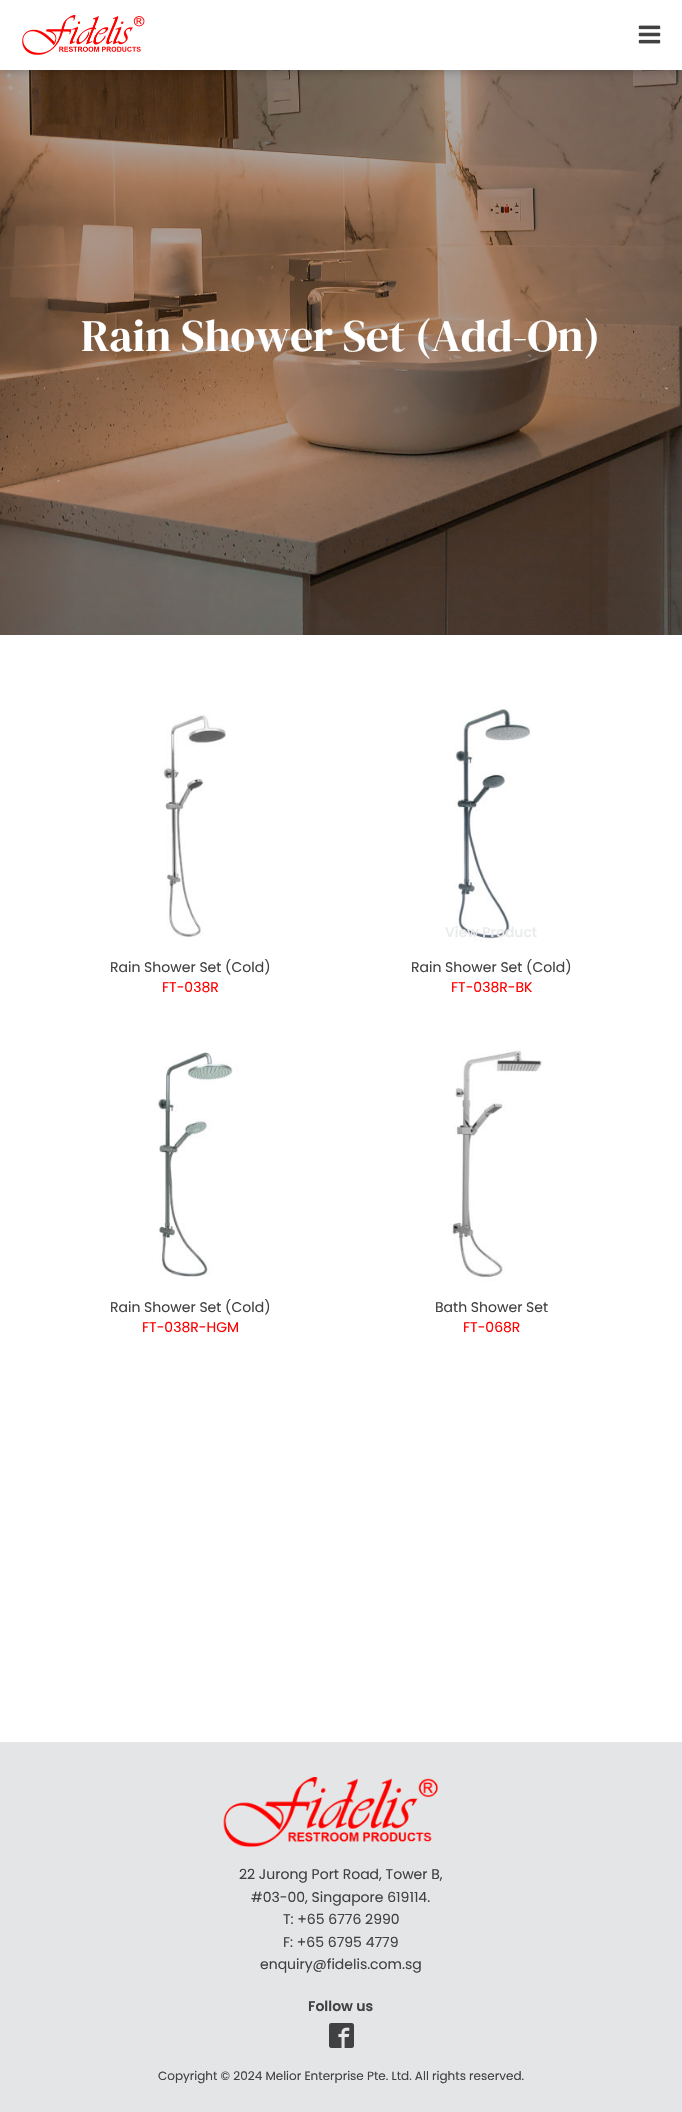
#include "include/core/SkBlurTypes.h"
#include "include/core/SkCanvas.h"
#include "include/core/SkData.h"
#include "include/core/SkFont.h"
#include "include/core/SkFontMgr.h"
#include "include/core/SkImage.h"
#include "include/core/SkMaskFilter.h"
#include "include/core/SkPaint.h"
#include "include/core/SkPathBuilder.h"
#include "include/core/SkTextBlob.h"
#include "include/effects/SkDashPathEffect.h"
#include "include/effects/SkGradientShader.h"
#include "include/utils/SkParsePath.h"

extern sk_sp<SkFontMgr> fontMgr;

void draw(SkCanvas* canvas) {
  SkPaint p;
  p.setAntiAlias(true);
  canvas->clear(SK_ColorWHITE);
  canvas->drawImageRect(SkImages::DeferredFromEncodedData(SkData::MakeFromFileName("images/3.png")), SkRect::MakeLTRB(0, 70, 682, 635), SkSamplingOptions());
  p.setColor(SkColorSetARGB(77, 0, 0, 0));
  p.setMaskFilter(SkMaskFilter::MakeBlur(kNormal_SkBlurStyle, 5));
  canvas->drawRect(SkRect::MakeLTRB(0, 0, 682, 70), p);
  p.setMaskFilter(nullptr);
  p.setColor(SK_ColorWHITE);
  canvas->drawRect(SkRect::MakeLTRB(0, 0, 682, 70), p);
  canvas->drawImageRect(SkImages::DeferredFromEncodedData(SkData::MakeFromFileName("images/1.png")), SkRect::MakeLTRB(22, 15, 145, 55), SkSamplingOptions());
  canvas->drawImageRect(SkImages::DeferredFromEncodedData(SkData::MakeFromFileName("images/2.png")), SkRect::MakeLTRB(638, 25, 661, 44), SkSamplingOptions());
  canvas->drawImageRect(SkImages::DeferredFromEncodedData(SkData::MakeFromFileName("images/4.png")), SkRect::MakeLTRB(160, 714, 226, 937), SkSamplingOptions());
  canvas->drawImageRect(SkImages::DeferredFromEncodedData(SkData::MakeFromFileName("images/5.png")), SkRect::MakeLTRB(454, 708, 531, 942), SkSamplingOptions());
  canvas->drawImageRect(SkImages::DeferredFromEncodedData(SkData::MakeFromFileName("images/6.png")), SkRect::MakeLTRB(156, 1052, 238, 1277), SkSamplingOptions());
  canvas->drawImageRect(SkImages::DeferredFromEncodedData(SkData::MakeFromFileName("images/7.png")), SkRect::MakeLTRB(448, 1049, 543, 1281), SkSamplingOptions());
  p.setColor(SkColorSetRGB(228, 229, 230));
  canvas->drawRect(SkRect::MakeLTRB(0, 1742, 682, 2112), p);
  canvas->drawImageRect(SkImages::DeferredFromEncodedData(SkData::MakeFromFileName("images/8.png")), SkRect::MakeLTRB(223, 1777, 438, 1847), SkSamplingOptions());
  canvas->drawImageRect(SkImages::DeferredFromEncodedData(SkData::MakeFromFileName("images/9.png")), SkRect::MakeLTRB(329, 2023, 354, 2048), SkSamplingOptions());
  SkFont font1(fontMgr->matchFamilyStyle("DM Serif Display", SkFontStyle::Normal()), 45);
  font1.setSubpixel(true);
  p.setColor(SK_ColorWHITE);
  canvas->drawString("Rain Shower Set (Add-On)", 81, 351, font1, p);
  SkFont font2(fontMgr->matchFamilyStyle("Poppins", SkFontStyle::Normal()), 14);
  font2.setSubpixel(true);
  p.setColor(SkColorSetRGB(65, 64, 66));
  canvas->drawString("Rain Shower Set (Cold)", 110, 972, font2, p);
  p.setColor(SkColorSetRGB(255, 0, 0));
  canvas->drawString("FT-038R", 162, 992, font2, p);
  SkFont font3(fontMgr->matchFamilyStyle("Poppins", SkFontStyle(500, SkFontStyle::kNormal_Width, SkFontStyle::kUpright_Slant)), 14);
  font3.setSubpixel(true);
  p.setColor(SkColorSetRGB(234, 235, 236));
  canvas->drawString("View Product", 445, 937, font3, p);
  p.setColor(SkColorSetRGB(65, 64, 66));
  canvas->drawString("Rain Shower Set (Cold)", 411, 972, font2, p);
  p.setColor(SkColorSetRGB(255, 0, 0));
  canvas->drawString("FT-038R-BK", 451, 992, font2, p);
  p.setColor(SkColorSetRGB(65, 64, 66));
  canvas->drawString("Rain Shower Set (Cold)", 110, 1312, font2, p);
  p.setColor(SkColorSetRGB(255, 0, 0));
  canvas->drawString("FT-038R-HGM", 142, 1332, font2, p);
  p.setColor(SkColorSetRGB(65, 64, 66));
  canvas->drawString("Bath Shower Set", 435, 1312, font2, p);
  p.setColor(SkColorSetRGB(255, 0, 0));
  canvas->drawString("FT-068R", 463, 1332, font2, p);
  p.setColor(SkColorSetRGB(65, 64, 66));
  canvas->drawString("22 Jurong Port Road, Tower B,", 239, 1879, font2, p);
  canvas->drawString("#03-00, Singapore 619114.", 251, 1902, font2, p);
  canvas->drawString("T: +65 6776 2990", 283, 1924, font2, p);
  canvas->drawString("F: +65 6795 4779", 283, 1947, font2, p);
  canvas->drawString("enquiry@fidelis.com.sg", 260, 1969, font2, p);
  SkFont font4(fontMgr->matchFamilyStyle("Poppins", SkFontStyle(600, SkFontStyle::kNormal_Width, SkFontStyle::kUpright_Slant)), 14);
  font4.setSubpixel(true);
  canvas->drawString("Follow us", 308, 2011, font4, p);
  SkFont font5(fontMgr->matchFamilyStyle("Poppins", SkFontStyle::Normal()), 12);
  font5.setSubpixel(true);
  canvas->drawString("Copyright © 2024 Melior Enterprise Pte. Ltd. All rights reserved.", 158, 2080, font5, p);
}
